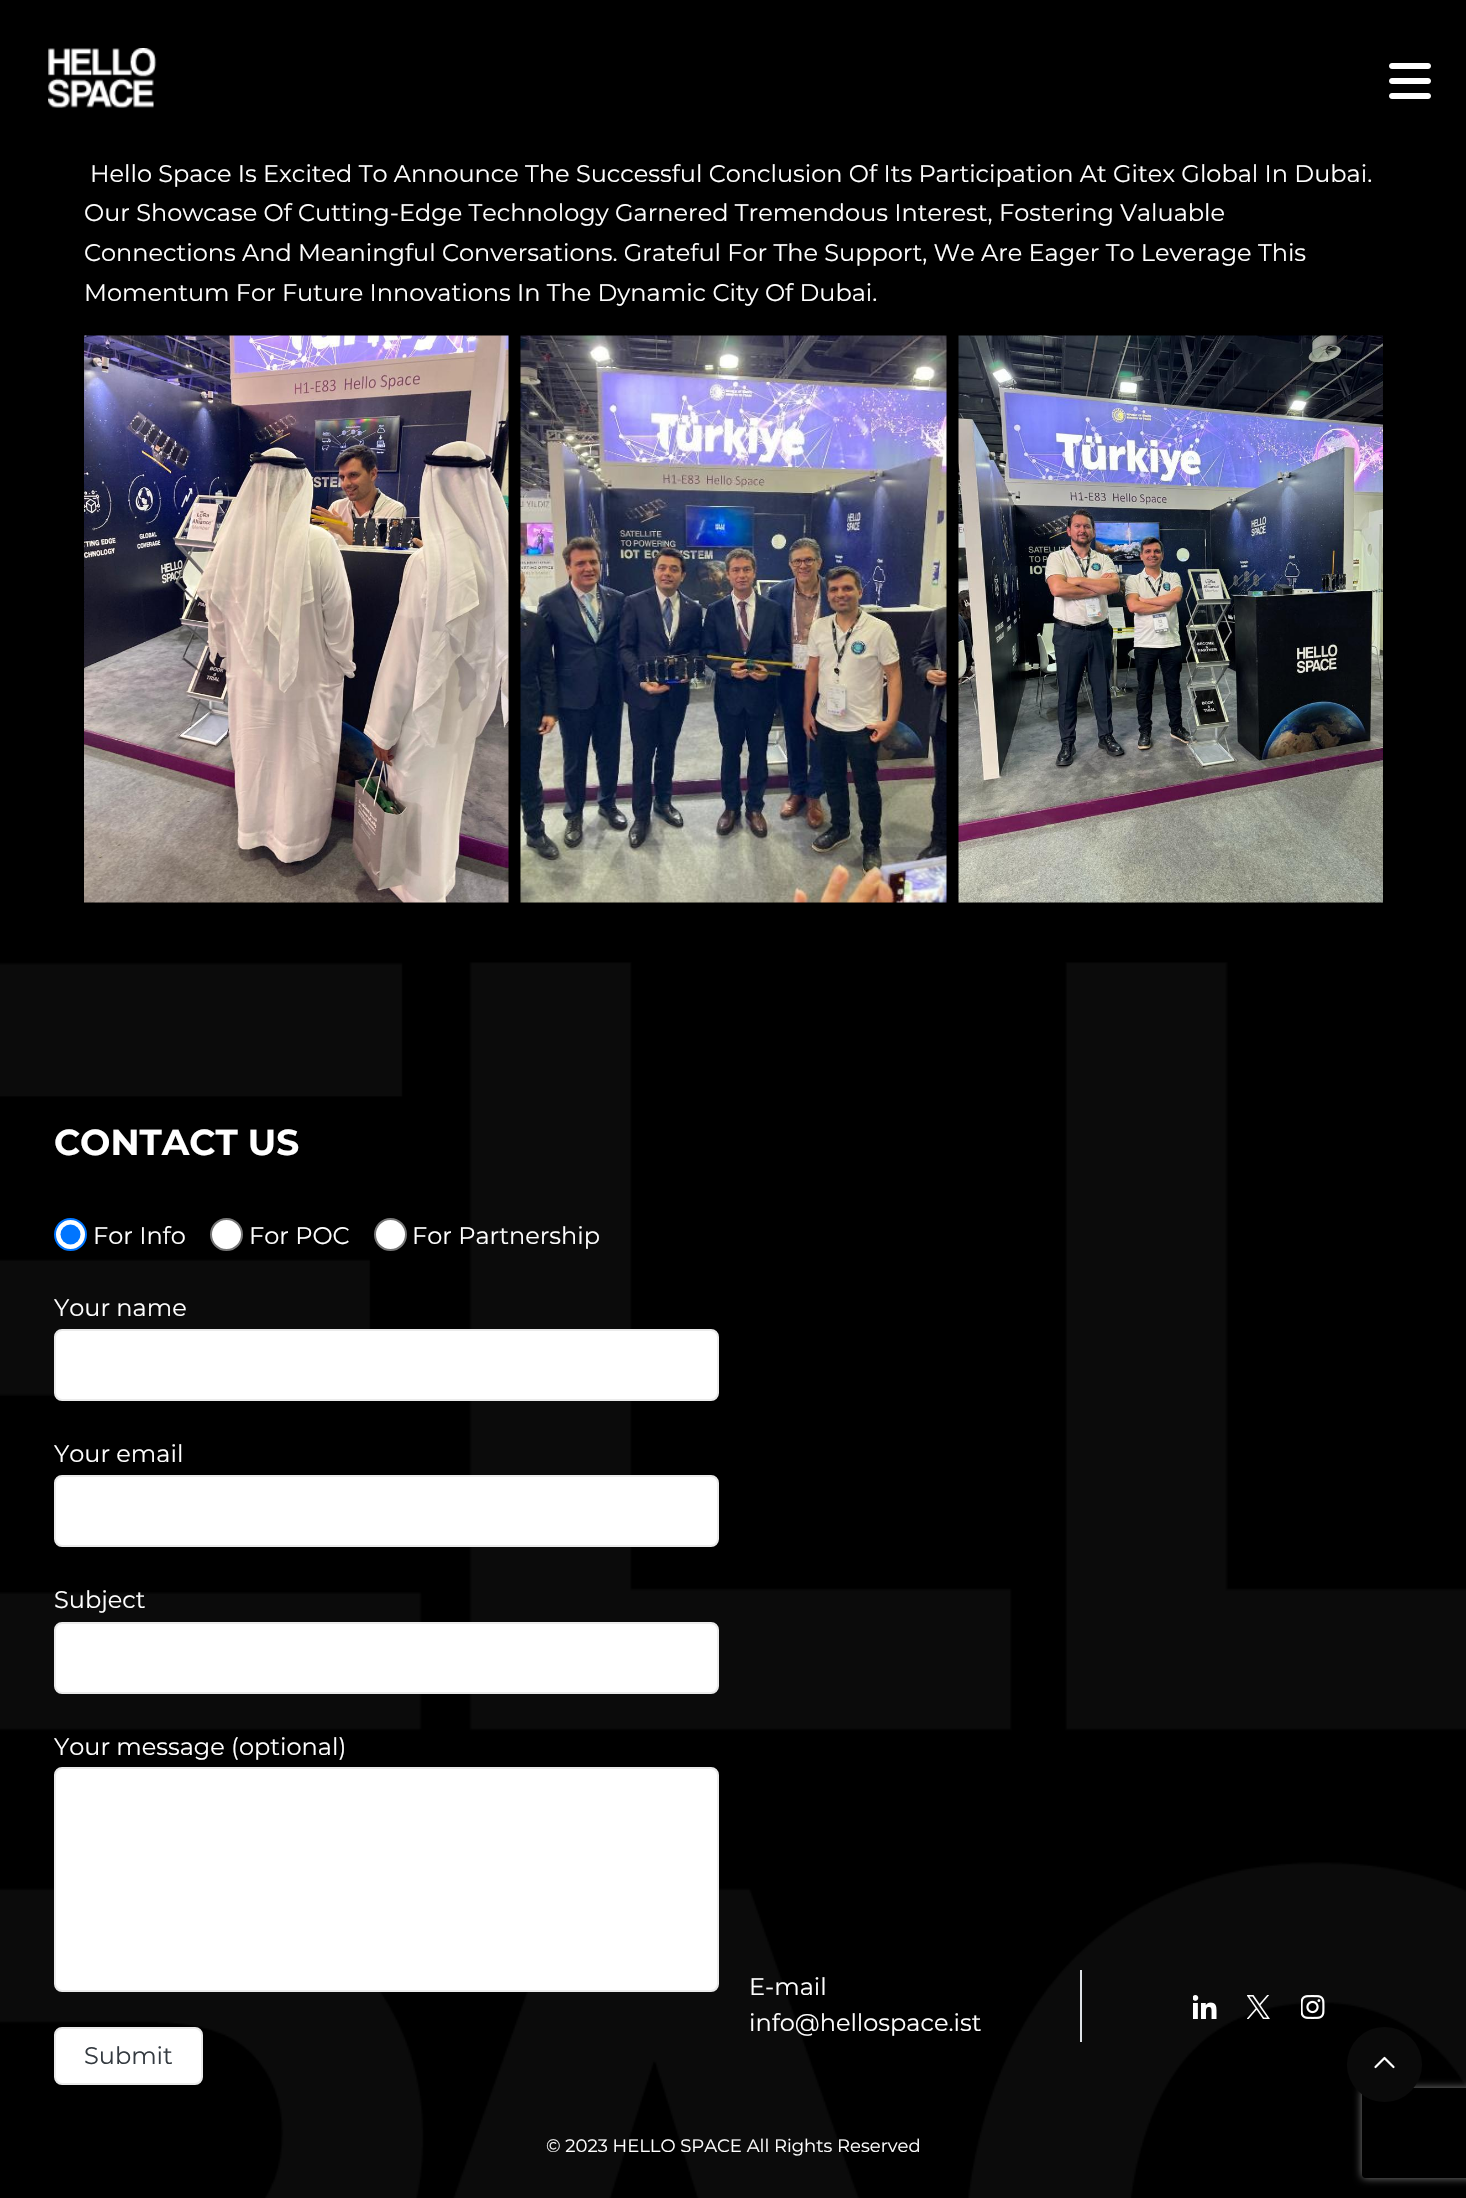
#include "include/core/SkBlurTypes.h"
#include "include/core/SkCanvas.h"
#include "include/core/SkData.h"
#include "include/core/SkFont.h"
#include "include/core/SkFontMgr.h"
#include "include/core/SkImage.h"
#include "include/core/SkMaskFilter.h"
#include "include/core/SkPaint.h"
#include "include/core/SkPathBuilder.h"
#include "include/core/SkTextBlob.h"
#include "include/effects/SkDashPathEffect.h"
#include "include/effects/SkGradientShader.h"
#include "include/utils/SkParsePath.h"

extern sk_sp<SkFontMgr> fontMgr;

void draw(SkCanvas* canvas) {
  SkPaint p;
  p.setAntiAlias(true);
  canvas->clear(SK_ColorBLACK);
  canvas->drawImageRect(SkImages::DeferredFromEncodedData(SkData::MakeFromFileName("images/1.png")), SkRect::MakeLTRB(48, 48, 157, 108), SkSamplingOptions());
  canvas->drawImageRect(SkImages::DeferredFromEncodedData(SkData::MakeFromFileName("images/2.png")), SkRect::MakeLTRB(1389, 63, 1431, 99), SkSamplingOptions());
  canvas->drawImageRect(SkImages::DeferredFromEncodedData(SkData::MakeFromFileName("images/3.png")), SkRect::MakeLTRB(84, 335, 509, 903), SkSamplingOptions());
  canvas->drawImageRect(SkImages::DeferredFromEncodedData(SkData::MakeFromFileName("images/4.png")), SkRect::MakeLTRB(520, 335, 947, 903), SkSamplingOptions());
  canvas->drawImageRect(SkImages::DeferredFromEncodedData(SkData::MakeFromFileName("images/5.png")), SkRect::MakeLTRB(958, 335, 1383, 903), SkSamplingOptions());
  canvas->drawImageRect(SkImages::DeferredFromEncodedData(SkData::MakeFromFileName("images/6.png")), SkRect::MakeLTRB(0, 962, 1466, 2198), SkSamplingOptions());
  p.setColor(SK_ColorWHITE);
  canvas->drawCircle(70.5f, 1234.5f, 15.5f, p);
  p.setStyle(SkPaint::kStroke_Style);
  p.setStrokeWidth(2);
  p.setColor(SkColorSetRGB(0, 117, 255));
  canvas->drawCircle(70.5f, 1234.5f, 15.5f, p);
  p.setStyle(SkPaint::kFill_Style);
  canvas->drawCircle(70.5f, 1234.5f, 10, p);
  p.setColor(SK_ColorWHITE);
  canvas->drawCircle(226.5f, 1234.5f, 15.5f, p);
  p.setStyle(SkPaint::kStroke_Style);
  p.setColor(SkColorSetRGB(118, 118, 118));
  canvas->drawCircle(226.5f, 1234.5f, 15.5f, p);
  p.setStyle(SkPaint::kFill_Style);
  p.setColor(SK_ColorWHITE);
  canvas->drawCircle(390.5f, 1234.5f, 15.5f, p);
  p.setStyle(SkPaint::kStroke_Style);
  p.setColor(SkColorSetRGB(118, 118, 118));
  canvas->drawCircle(390.5f, 1234.5f, 15.5f, p);
  p.setStyle(SkPaint::kFill_Style);
  p.setColor(SK_ColorWHITE);
  canvas->drawRoundRect(SkRect::MakeLTRB(55, 1330, 718, 1400), 7, 7, p);
  p.setStyle(SkPaint::kStroke_Style);
  p.setColor(SkColorSetRGB(235, 235, 235));
  canvas->drawRoundRect(SkRect::MakeLTRB(55, 1330, 718, 1400), 7, 7, p);
  p.setStyle(SkPaint::kFill_Style);
  p.setColor(SK_ColorWHITE);
  canvas->drawRoundRect(SkRect::MakeLTRB(55, 1476, 718, 1546), 7, 7, p);
  p.setStyle(SkPaint::kStroke_Style);
  p.setColor(SkColorSetRGB(235, 235, 235));
  canvas->drawRoundRect(SkRect::MakeLTRB(55, 1476, 718, 1546), 7, 7, p);
  p.setStyle(SkPaint::kFill_Style);
  p.setColor(SK_ColorWHITE);
  canvas->drawRoundRect(SkRect::MakeLTRB(55, 1623, 718, 1693), 7, 7, p);
  p.setStyle(SkPaint::kStroke_Style);
  p.setColor(SkColorSetRGB(235, 235, 235));
  canvas->drawRoundRect(SkRect::MakeLTRB(55, 1623, 718, 1693), 7, 7, p);
  p.setStyle(SkPaint::kFill_Style);
  p.setColor(SK_ColorWHITE);
  canvas->drawRoundRect(SkRect::MakeLTRB(55, 1768, 718, 1991), 7, 7, p);
  p.setStyle(SkPaint::kStroke_Style);
  p.setColor(SkColorSetRGB(235, 235, 235));
  canvas->drawRoundRect(SkRect::MakeLTRB(55, 1768, 718, 1991), 7, 7, p);
  p.setStyle(SkPaint::kFill_Style);
  p.setColor(SK_ColorWHITE);
  canvas->drawRoundRect(SkRect::MakeLTRB(55, 2028, 202, 2084), 7, 7, p);
  p.setStyle(SkPaint::kStroke_Style);
  p.setColor(SkColorSetRGB(235, 235, 235));
  canvas->drawRoundRect(SkRect::MakeLTRB(55, 2028, 202, 2084), 7, 7, p);
  p.setStyle(SkPaint::kFill_Style);
  p.setColor(SkColorSetRGB(222, 226, 230));
  canvas->drawRect(SkRect::MakeLTRB(1080, 1970, 1082, 2042), p);
  canvas->drawImageRect(SkImages::DeferredFromEncodedData(SkData::MakeFromFileName("images/7.png")), SkRect::MakeLTRB(1193, 1995, 1217, 2019), SkSamplingOptions());
  canvas->drawImageRect(SkImages::DeferredFromEncodedData(SkData::MakeFromFileName("images/8.png")), SkRect::MakeLTRB(1247, 1995, 1270, 2019), SkSamplingOptions());
  canvas->drawImageRect(SkImages::DeferredFromEncodedData(SkData::MakeFromFileName("images/9.png")), SkRect::MakeLTRB(1301, 1995, 1325, 2019), SkSamplingOptions());
  canvas->save();
  canvas->clipPath(SkPathBuilder(SkPathFillType::kEvenOdd).moveTo(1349, 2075).lineTo(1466, 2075).lineTo(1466, 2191).lineTo(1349, 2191).close().moveTo(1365, 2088).lineTo(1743, 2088).cubicTo(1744.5f, 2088, 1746, 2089.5f, 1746, 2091).lineTo(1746, 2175).cubicTo(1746, 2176.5f, 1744.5f, 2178, 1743, 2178).lineTo(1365, 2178).cubicTo(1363.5f, 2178, 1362, 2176.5f, 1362, 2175).lineTo(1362, 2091).cubicTo(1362, 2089.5f, 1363.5f, 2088, 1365, 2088).close().detach(), true);
  p.setColor(SkColorSetRGB(128, 128, 128));
  p.setMaskFilter(SkMaskFilter::MakeBlur(kNormal_SkBlurStyle, 4));
  canvas->drawRoundRect(SkRect::MakeLTRB(1362, 2088, 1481, 2178), 3, 3, p);
  p.setMaskFilter(nullptr);
  canvas->restore();
  p.setColor(SkColorSetRGB(10, 10, 10));
  canvas->drawCircle(1384.5f, 2064.5f, 37.5f, p);
  p.setStyle(SkPaint::kStroke_Style);
  p.setStrokeWidth(2.2f);
  p.setStrokeCap(SkPaint::kRound_Cap);
  p.setStrokeJoin(SkPaint::kRound_Join);
  p.setColor(SK_ColorWHITE);
  canvas->drawPath(SkPathBuilder().moveTo(1375.5f, 2067).lineTo(1384.5f, 2058).lineTo(1393.5f, 2067).detach(), p);
  SkFont font1(fontMgr->matchFamilyStyle("Montserrat", SkFontStyle::Normal()), 24);
  font1.setSubpixel(true);
  p.setStyle(SkPaint::kFill_Style);
  canvas->drawString("Hello Space Is Excited To Announce The Successful Conclusion Of Its Participation At Gitex Global In Dubai.", 90, 182, font1, p);
  canvas->drawString("Our Showcase Of Cutting-Edge Technology Garnered Tremendous Interest, Fostering Valuable", 84, 221, font1, p);
  canvas->drawString("Connections And Meaningful Conversations. Grateful For The Support, We Are Eager To Leverage This", 84, 261, font1, p);
  canvas->drawString("Momentum For Future Innovations In The Dynamic City Of Dubai.", 84, 301, font1, p);
  SkFont font2(fontMgr->matchFamilyStyle("Montserrat", SkFontStyle::Bold()), 36);
  font2.setSubpixel(true);
  canvas->drawString("CONTACT US", 54, 1155, font2, p);
  canvas->drawString("For Info", 93, 1244, font1, p);
  canvas->drawString("For POC", 249, 1244, font1, p);
  canvas->drawString("For Partnership", 412, 1244, font1, p);
  canvas->drawString("Your name", 54, 1316, font1, p);
  canvas->drawString("Your email", 54, 1462, font1, p);
  canvas->drawString("Subject", 54, 1608, font1, p);
  canvas->drawString("Your message (optional)", 54, 1755, font1, p);
  p.setColor(SkColorSetRGB(52, 58, 64));
  canvas->drawString("Submit", 84, 2064, font1, p);
  p.setColor(SK_ColorWHITE);
  canvas->drawString("E-mail", 749, 1995, font1, p);
  canvas->drawString("info@hellospace.ist", 749, 2031, font1, p);
  SkFont font3(fontMgr->matchFamilyStyle("Montserrat", SkFontStyle::Normal()), 18);
  font3.setSubpixel(true);
  canvas->drawString("© 2023 HELLO SPACE All Rights Reserved", 546, 2152, font3, p);
}
